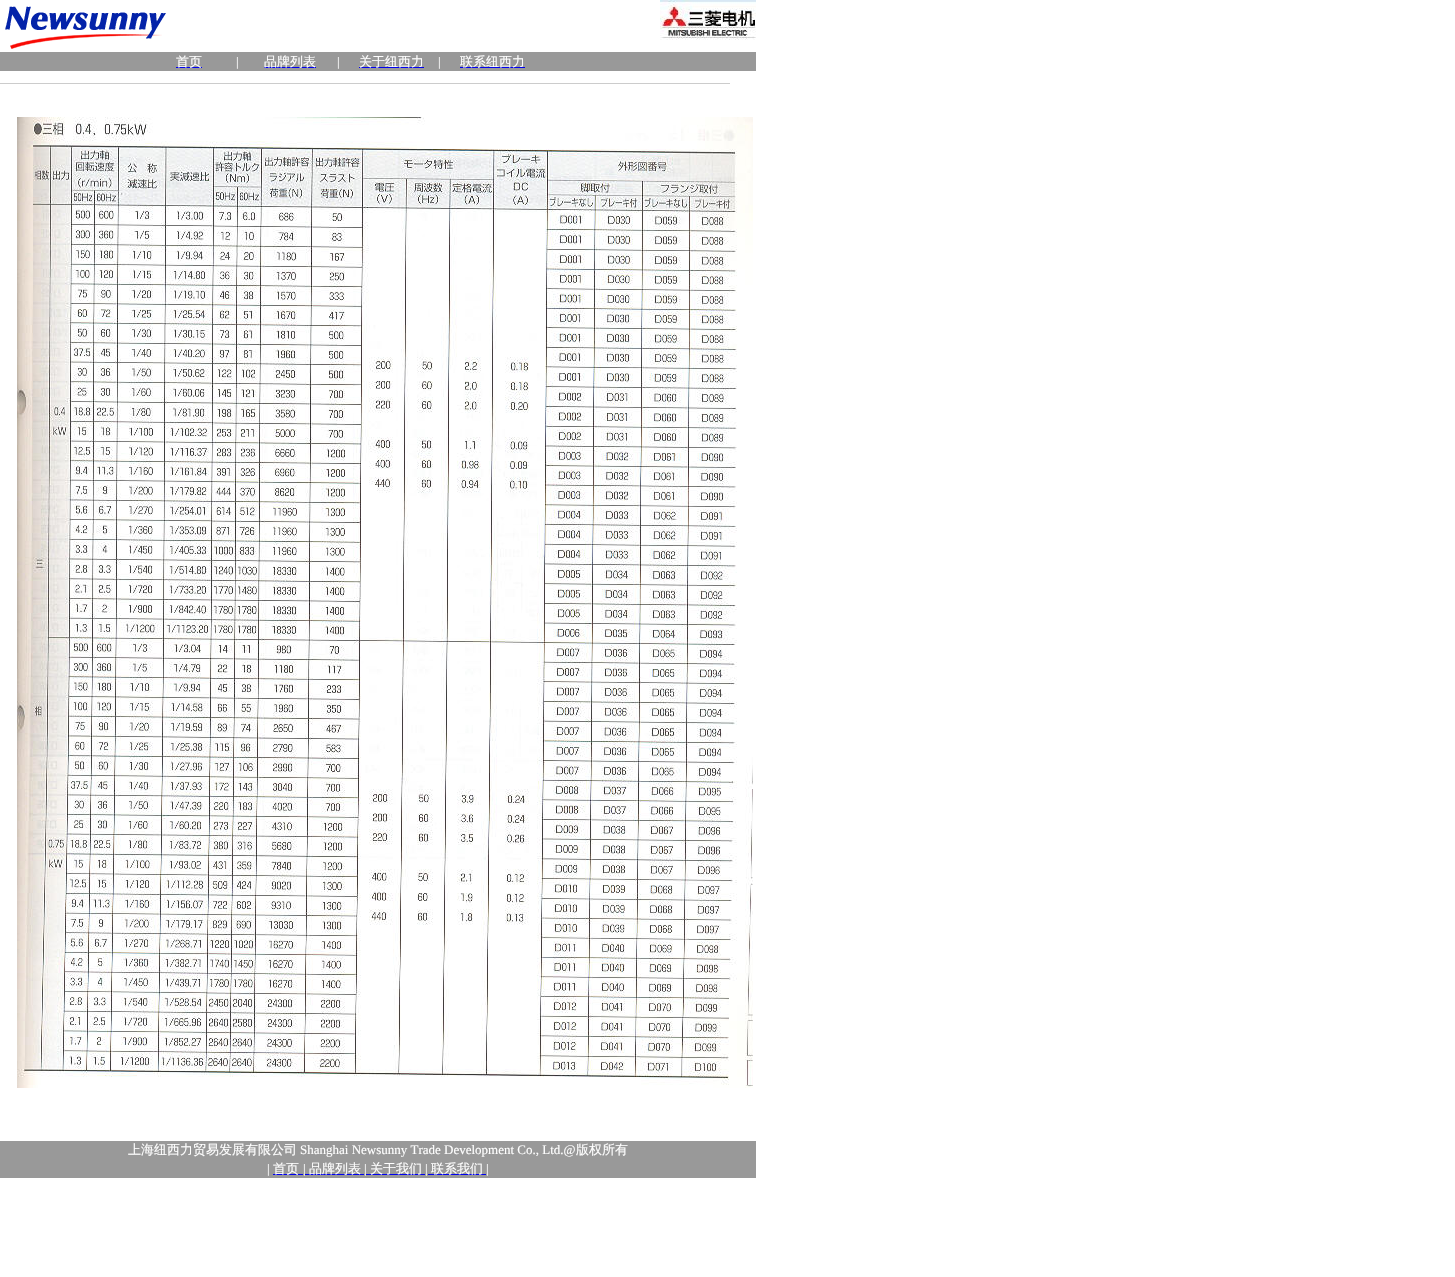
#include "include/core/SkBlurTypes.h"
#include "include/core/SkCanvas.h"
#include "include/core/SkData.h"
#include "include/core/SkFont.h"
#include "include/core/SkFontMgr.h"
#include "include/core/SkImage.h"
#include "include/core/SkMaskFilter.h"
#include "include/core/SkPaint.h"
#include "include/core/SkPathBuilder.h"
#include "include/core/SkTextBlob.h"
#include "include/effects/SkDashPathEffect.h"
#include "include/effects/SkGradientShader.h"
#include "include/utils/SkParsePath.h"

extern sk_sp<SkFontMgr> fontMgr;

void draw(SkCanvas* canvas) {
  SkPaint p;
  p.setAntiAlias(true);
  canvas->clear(SK_ColorWHITE);
  canvas->drawImageRect(SkImages::DeferredFromEncodedData(SkData::MakeFromFileName("images/1.png")), SkRect::MakeLTRB(5, 6, 166, 49), SkSamplingOptions());
  canvas->drawImageRect(SkImages::DeferredFromEncodedData(SkData::MakeFromFileName("images/2.png")), SkRect::MakeLTRB(660, 0, 756, 40), SkSamplingOptions());
  p.setColor(SkColorSetRGB(153, 153, 153));
  canvas->drawRect(SkRect::MakeLTRB(0, 52, 756, 71), p);
  p.setColor(SkColorSetRGB(0, 0, 238));
  canvas->drawRect(SkRect::MakeLTRB(176, 67, 202, 68), p);
  canvas->drawRect(SkRect::MakeLTRB(264, 67, 316, 68), p);
  canvas->drawRect(SkRect::MakeLTRB(359, 67, 424, 68), p);
  canvas->drawRect(SkRect::MakeLTRB(460, 67, 525, 68), p);
  p.setColor(SkColorSetRGB(204, 204, 204));
  canvas->drawRect(SkRect::MakeLTRB(0, 83, 730, 84), p);
  canvas->drawImageRect(SkImages::DeferredFromEncodedData(SkData::MakeFromFileName("images/3.png")), SkRect::MakeLTRB(17, 117, 753, 1088), SkSamplingOptions());
  p.setColor(SkColorSetRGB(153, 153, 153));
  canvas->drawRect(SkRect::MakeLTRB(0, 1141, 756, 1178), p);
  p.setColor(SkColorSetRGB(0, 0, 238));
  canvas->drawRect(SkRect::MakeLTRB(273, 1174, 303, 1175), p);
  canvas->drawRect(SkRect::MakeLTRB(305, 1174, 364, 1175), p);
  canvas->drawRect(SkRect::MakeLTRB(366, 1174, 425, 1175), p);
  canvas->drawRect(SkRect::MakeLTRB(428, 1174, 486, 1175), p);
  SkFont font1(fontMgr->matchFamilyStyle("WenQuanYi Zen Hei", SkFontStyle(500, SkFontStyle::kNormal_Width, SkFontStyle::kUpright_Slant)), 13);
  font1.setSubpixel(true);
  p.setColor(SK_ColorWHITE);
  canvas->drawString("首页", 176, 66, font1, p);
  SkFont font2(fontMgr->matchFamilyStyle("Liberation Serif", SkFontStyle::Normal()), 13);
  font2.setSubpixel(true);
  canvas->drawString("|", 236, 66, font2, p);
  canvas->drawString("品牌列表", 264, 66, font1, p);
  canvas->drawString("|", 337, 66, font2, p);
  canvas->drawString("关于纽西力", 359, 66, font1, p);
  canvas->drawString("|", 438, 66, font2, p);
  canvas->drawString("联系纽西力", 460, 66, font1, p);
  canvas->drawString("上海纽西力贸易发展有限公司", 128, 1154, font1, p);
  canvas->drawString("Shanghai Newsunny Trade Development Co., Ltd.@", 300, 1154, font2, p);
  canvas->drawString("版权所有", 576, 1154, font1, p);
  canvas->drawString("|", 267, 1173, font2, p);
  canvas->drawString("首页", 273, 1173, font1, p);
  canvas->drawString("|", 303, 1173, font2, p);
  canvas->drawString("品牌列表", 309, 1173, font1, p);
  canvas->drawString("|", 364, 1173, font2, p);
  canvas->drawString("关于我们", 370, 1173, font1, p);
  canvas->drawString("|", 425, 1173, font2, p);
  canvas->drawString("联系我们", 431, 1173, font1, p);
  canvas->drawString("|", 486, 1173, font2, p);
}
